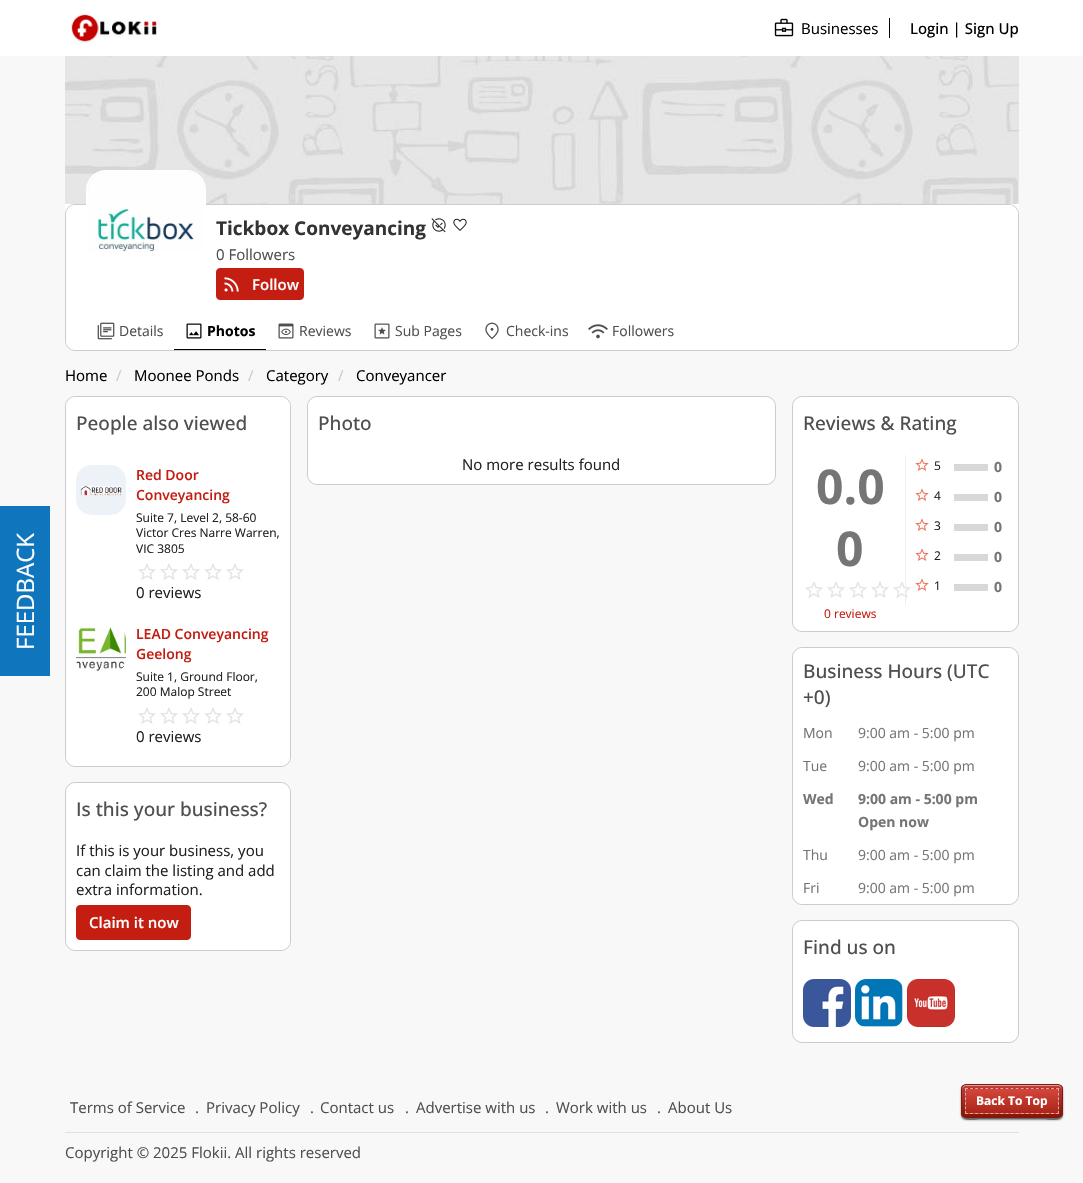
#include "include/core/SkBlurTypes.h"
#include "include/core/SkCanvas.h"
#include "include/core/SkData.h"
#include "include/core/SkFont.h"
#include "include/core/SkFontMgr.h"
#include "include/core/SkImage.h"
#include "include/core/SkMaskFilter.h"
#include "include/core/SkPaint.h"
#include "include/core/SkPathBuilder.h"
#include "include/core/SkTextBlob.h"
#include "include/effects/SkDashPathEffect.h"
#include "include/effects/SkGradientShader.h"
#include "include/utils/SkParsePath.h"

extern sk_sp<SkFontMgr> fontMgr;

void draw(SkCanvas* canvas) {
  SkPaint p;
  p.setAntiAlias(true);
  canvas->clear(SkColorSetRGB(248, 248, 248));
  p.setColor(SK_ColorWHITE);
  canvas->drawRoundRect(SkRect::MakeLTRB(65, -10, 1019, 351), 10, 10, p);
  canvas->drawRect(SkRect::MakeLTRB(0, 0, 1083, 56), p);
  canvas->drawImageRect(SkImages::DeferredFromEncodedData(SkData::MakeFromFileName("images/1.png")), SkRect::MakeLTRB(71, 14, 157, 44), SkSamplingOptions());
  canvas->drawImageRect(SkImages::DeferredFromEncodedData(SkData::MakeFromFileName("images/2.png")), SkRect::MakeLTRB(774, 18, 794, 37), SkSamplingOptions());
  p.setColor(SK_ColorBLACK);
  canvas->drawRect(SkRect::MakeLTRB(889, 18, 890, 38), p);
  p.setColor(SkColorSetRGB(15, 117, 189));
  canvas->drawRect(SkRect::MakeLTRB(0, 506, 50, 676), p);
  canvas->drawImageRect(SkImages::DeferredFromEncodedData(SkData::MakeFromFileName("images/3.png")), SkRect::MakeLTRB(65, 56, 1019, 204), SkSamplingOptions());
  p.setStyle(SkPaint::kStroke_Style);
  p.setStrokeWidth(1);
  p.setColor(SkColorSetRGB(204, 204, 204));
  canvas->drawRoundRect(SkRect::MakeLTRB(65.5f, 204.5f, 1018.5f, 350.5f), 9.5f, 9.5f, p);
  p.setStyle(SkPaint::kFill_Style);
  p.setColor(SK_ColorWHITE);
  canvas->drawRoundRect(SkRect::MakeLTRB(66, 205, 1018, 350), 10, 10, p);
  p.setStyle(SkPaint::kStroke_Style);
  p.setStrokeWidth(2);
  canvas->drawRoundRect(SkRect::MakeLTRB(87, 171, 205, 289), 19, 19, p);
  canvas->drawImageRect(SkImages::DeferredFromEncodedData(SkData::MakeFromFileName("images/4.png")), SkRect::MakeLTRB(88, 172, 204, 252), SkSamplingOptions());
  canvas->drawImageRect(SkImages::DeferredFromEncodedData(SkData::MakeFromFileName("images/5.png")), SkRect::MakeLTRB(431, 218, 446, 233), SkSamplingOptions());
  canvas->drawImageRect(SkImages::DeferredFromEncodedData(SkData::MakeFromFileName("images/6.png")), SkRect::MakeLTRB(453, 218, 467, 231), SkSamplingOptions());
  p.setStyle(SkPaint::kFill_Style);
  p.setColor(SkColorSetRGB(196, 30, 19));
  canvas->drawRoundRect(SkRect::MakeLTRB(216.5f, 268.5f, 303.5f, 299.5f), 3.5f, 3.5f, p);
  p.setStyle(SkPaint::kStroke_Style);
  p.setStrokeWidth(1);
  canvas->drawRoundRect(SkRect::MakeLTRB(216.5f, 268.5f, 303.5f, 299.5f), 3.5f, 3.5f, p);
  canvas->drawImageRect(SkImages::DeferredFromEncodedData(SkData::MakeFromFileName("images/7.png")), SkRect::MakeLTRB(224, 277, 239, 292), SkSamplingOptions());
  canvas->drawImageRect(SkImages::DeferredFromEncodedData(SkData::MakeFromFileName("images/8.png")), SkRect::MakeLTRB(97, 322, 115, 340), SkSamplingOptions());
  p.setStyle(SkPaint::kFill_Style);
  p.setColor(SK_ColorBLACK);
  canvas->drawRect(SkRect::MakeLTRB(174, 349, 266, 350), p);
  canvas->drawImageRect(SkImages::DeferredFromEncodedData(SkData::MakeFromFileName("images/9.png")), SkRect::MakeLTRB(186, 323, 202, 339), SkSamplingOptions());
  canvas->drawImageRect(SkImages::DeferredFromEncodedData(SkData::MakeFromFileName("images/10.png")), SkRect::MakeLTRB(278, 323, 294, 339), SkSamplingOptions());
  canvas->drawImageRect(SkImages::DeferredFromEncodedData(SkData::MakeFromFileName("images/11.png")), SkRect::MakeLTRB(374, 323, 390, 339), SkSamplingOptions());
  canvas->drawImageRect(SkImages::DeferredFromEncodedData(SkData::MakeFromFileName("images/12.png")), SkRect::MakeLTRB(485, 322, 499, 340), SkSamplingOptions());
  canvas->drawImageRect(SkImages::DeferredFromEncodedData(SkData::MakeFromFileName("images/13.png")), SkRect::MakeLTRB(588, 324, 608, 339), SkSamplingOptions());
  p.setStyle(SkPaint::kStroke_Style);
  p.setColor(SkColorSetRGB(204, 204, 204));
  canvas->drawRoundRect(SkRect::MakeLTRB(65.5f, 396.5f, 290.5f, 766.5f), 9.5f, 9.5f, p);
  p.setStyle(SkPaint::kFill_Style);
  p.setColor(SK_ColorWHITE);
  canvas->drawPath(SkPathBuilder().moveTo(76, 397).lineTo(280, 397).cubicTo(285.5f, 397, 290, 401.5f, 290, 407).lineTo(290, 445).lineTo(66, 445).lineTo(66, 407).cubicTo(66, 401.5f, 70.5f, 397, 76, 397).close().detach(), p);
  canvas->drawPath(SkPathBuilder().moveTo(66, 445).lineTo(290, 445).lineTo(290, 756).cubicTo(290, 761.5f, 285.5f, 766, 280, 766).lineTo(76, 766).cubicTo(70.5f, 766, 66, 761.5f, 66, 756).close().detach(), p);
  canvas->drawImageRect(SkImages::DeferredFromEncodedData(SkData::MakeFromFileName("images/14.png")), SkRect::MakeLTRB(76, 465, 126, 515), SkSamplingOptions());
  canvas->drawImageRect(SkImages::DeferredFromEncodedData(SkData::MakeFromFileName("images/15.png")), SkRect::MakeLTRB(138, 563, 156, 580), SkSamplingOptions());
  canvas->drawImageRect(SkImages::DeferredFromEncodedData(SkData::MakeFromFileName("images/15.png")), SkRect::MakeLTRB(160, 563, 178, 580), SkSamplingOptions());
  canvas->drawImageRect(SkImages::DeferredFromEncodedData(SkData::MakeFromFileName("images/15.png")), SkRect::MakeLTRB(182, 563, 200, 580), SkSamplingOptions());
  canvas->drawImageRect(SkImages::DeferredFromEncodedData(SkData::MakeFromFileName("images/15.png")), SkRect::MakeLTRB(204, 563, 222, 580), SkSamplingOptions());
  canvas->drawImageRect(SkImages::DeferredFromEncodedData(SkData::MakeFromFileName("images/15.png")), SkRect::MakeLTRB(226, 563, 244, 580), SkSamplingOptions());
  canvas->drawImageRect(SkImages::DeferredFromEncodedData(SkData::MakeFromFileName("images/16.png")), SkRect::MakeLTRB(76, 627, 126, 671), SkSamplingOptions());
  canvas->drawImageRect(SkImages::DeferredFromEncodedData(SkData::MakeFromFileName("images/15.png")), SkRect::MakeLTRB(138, 707, 156, 724), SkSamplingOptions());
  canvas->drawImageRect(SkImages::DeferredFromEncodedData(SkData::MakeFromFileName("images/15.png")), SkRect::MakeLTRB(160, 707, 178, 724), SkSamplingOptions());
  canvas->drawImageRect(SkImages::DeferredFromEncodedData(SkData::MakeFromFileName("images/15.png")), SkRect::MakeLTRB(182, 707, 200, 724), SkSamplingOptions());
  canvas->drawImageRect(SkImages::DeferredFromEncodedData(SkData::MakeFromFileName("images/15.png")), SkRect::MakeLTRB(204, 707, 222, 724), SkSamplingOptions());
  canvas->drawImageRect(SkImages::DeferredFromEncodedData(SkData::MakeFromFileName("images/15.png")), SkRect::MakeLTRB(226, 707, 244, 724), SkSamplingOptions());
  p.setStyle(SkPaint::kStroke_Style);
  p.setColor(SkColorSetRGB(204, 204, 204));
  canvas->drawRoundRect(SkRect::MakeLTRB(65.5f, 782.5f, 290.5f, 950.5f), 9.5f, 9.5f, p);
  p.setStyle(SkPaint::kFill_Style);
  p.setColor(SK_ColorWHITE);
  canvas->drawPath(SkPathBuilder().moveTo(76, 783).lineTo(280, 783).cubicTo(285.5f, 783, 290, 787.5f, 290, 793).lineTo(290, 831).lineTo(66, 831).lineTo(66, 793).cubicTo(66, 787.5f, 70.5f, 783, 76, 783).close().detach(), p);
  canvas->drawPath(SkPathBuilder().moveTo(66, 831).lineTo(290, 831).lineTo(290, 940).cubicTo(290, 945.5f, 285.5f, 950, 280, 950).lineTo(76, 950).cubicTo(70.5f, 950, 66, 945.5f, 66, 940).close().detach(), p);
  p.setColor(SkColorSetRGB(196, 30, 19));
  canvas->drawRoundRect(SkRect::MakeLTRB(76.5f, 905.5f, 190.5f, 939.5f), 3.5f, 3.5f, p);
  p.setStyle(SkPaint::kStroke_Style);
  canvas->drawRoundRect(SkRect::MakeLTRB(76.5f, 905.5f, 190.5f, 939.5f), 3.5f, 3.5f, p);
  p.setColor(SkColorSetRGB(204, 204, 204));
  canvas->drawRoundRect(SkRect::MakeLTRB(307.5f, 396.5f, 775.5f, 484.5f), 9.5f, 9.5f, p);
  p.setStyle(SkPaint::kFill_Style);
  p.setColor(SK_ColorWHITE);
  canvas->drawPath(SkPathBuilder().moveTo(318, 397).lineTo(765, 397).cubicTo(770.5f, 397, 775, 401.5f, 775, 407).lineTo(775, 445).lineTo(308, 445).lineTo(308, 407).cubicTo(308, 401.5f, 312.5f, 397, 318, 397).close().detach(), p);
  canvas->drawPath(SkPathBuilder().moveTo(308, 445).lineTo(775, 445).lineTo(775, 474).cubicTo(775, 479.5f, 770.5f, 484, 765, 484).lineTo(318, 484).cubicTo(312.5f, 484, 308, 479.5f, 308, 474).close().detach(), p);
  p.setStyle(SkPaint::kStroke_Style);
  p.setColor(SkColorSetRGB(204, 204, 204));
  canvas->drawRoundRect(SkRect::MakeLTRB(792.5f, 396.5f, 1018.5f, 631.5f), 9.5f, 9.5f, p);
  p.setStyle(SkPaint::kFill_Style);
  p.setColor(SK_ColorWHITE);
  canvas->drawPath(SkPathBuilder().moveTo(803, 397).lineTo(1008, 397).cubicTo(1013.5f, 397, 1018, 401.5f, 1018, 407).lineTo(1018, 445).lineTo(793, 445).lineTo(793, 407).cubicTo(793, 401.5f, 797.5f, 397, 803, 397).close().detach(), p);
  canvas->drawPath(SkPathBuilder().moveTo(793, 445).lineTo(1018, 445).lineTo(1018, 621).cubicTo(1018, 626.5f, 1013.5f, 631, 1008, 631).lineTo(803, 631).cubicTo(797.5f, 631, 793, 626.5f, 793, 621).close().detach(), p);
  canvas->drawImageRect(SkImages::DeferredFromEncodedData(SkData::MakeFromFileName("images/15.png")), SkRect::MakeLTRB(805, 581, 823, 598), SkSamplingOptions());
  canvas->drawImageRect(SkImages::DeferredFromEncodedData(SkData::MakeFromFileName("images/15.png")), SkRect::MakeLTRB(827, 581, 845, 598), SkSamplingOptions());
  canvas->drawImageRect(SkImages::DeferredFromEncodedData(SkData::MakeFromFileName("images/15.png")), SkRect::MakeLTRB(849, 581, 867, 598), SkSamplingOptions());
  canvas->drawImageRect(SkImages::DeferredFromEncodedData(SkData::MakeFromFileName("images/15.png")), SkRect::MakeLTRB(871, 581, 889, 598), SkSamplingOptions());
  canvas->drawImageRect(SkImages::DeferredFromEncodedData(SkData::MakeFromFileName("images/15.png")), SkRect::MakeLTRB(893, 581, 911, 598), SkSamplingOptions());
  p.setColor(SkColorSetRGB(239, 239, 239));
  canvas->drawRect(SkRect::MakeLTRB(905, 455, 906, 605), p);
  canvas->drawImageRect(SkImages::DeferredFromEncodedData(SkData::MakeFromFileName("images/17.png")), SkRect::MakeLTRB(915, 458, 929, 471), SkSamplingOptions());
  p.setColor(SkColorSetRGB(216, 216, 216));
  canvas->drawRect(SkRect::MakeLTRB(954, 464, 988, 471), p);
  canvas->drawImageRect(SkImages::DeferredFromEncodedData(SkData::MakeFromFileName("images/17.png")), SkRect::MakeLTRB(915, 488, 929, 501), SkSamplingOptions());
  canvas->drawRect(SkRect::MakeLTRB(954, 494, 988, 501), p);
  canvas->drawImageRect(SkImages::DeferredFromEncodedData(SkData::MakeFromFileName("images/17.png")), SkRect::MakeLTRB(915, 518, 929, 531), SkSamplingOptions());
  canvas->drawRect(SkRect::MakeLTRB(954, 524, 988, 531), p);
  canvas->drawImageRect(SkImages::DeferredFromEncodedData(SkData::MakeFromFileName("images/17.png")), SkRect::MakeLTRB(915, 548, 929, 561), SkSamplingOptions());
  canvas->drawRect(SkRect::MakeLTRB(954, 554, 988, 561), p);
  canvas->drawImageRect(SkImages::DeferredFromEncodedData(SkData::MakeFromFileName("images/17.png")), SkRect::MakeLTRB(915, 578, 929, 591), SkSamplingOptions());
  canvas->drawRect(SkRect::MakeLTRB(954, 584, 988, 591), p);
  p.setStyle(SkPaint::kStroke_Style);
  p.setColor(SkColorSetRGB(204, 204, 204));
  canvas->drawRoundRect(SkRect::MakeLTRB(792.5f, 647.5f, 1018.5f, 904.5f), 9.5f, 9.5f, p);
  p.setStyle(SkPaint::kFill_Style);
  p.setColor(SK_ColorWHITE);
  canvas->drawPath(SkPathBuilder().moveTo(803, 648).lineTo(1008, 648).cubicTo(1013.5f, 648, 1018, 652.5f, 1018, 658).lineTo(1018, 716).lineTo(793, 716).lineTo(793, 658).cubicTo(793, 652.5f, 797.5f, 648, 803, 648).close().detach(), p);
  canvas->drawPath(SkPathBuilder().moveTo(793, 716).lineTo(1018, 716).lineTo(1018, 894).cubicTo(1018, 899.5f, 1013.5f, 904, 1008, 904).lineTo(803, 904).cubicTo(797.5f, 904, 793, 899.5f, 793, 894).close().detach(), p);
  p.setStyle(SkPaint::kStroke_Style);
  p.setColor(SkColorSetRGB(204, 204, 204));
  canvas->drawRoundRect(SkRect::MakeLTRB(792.5f, 920.5f, 1018.5f, 1042.5f), 9.5f, 9.5f, p);
  p.setStyle(SkPaint::kFill_Style);
  p.setColor(SK_ColorWHITE);
  canvas->drawPath(SkPathBuilder().moveTo(803, 921).lineTo(1008, 921).cubicTo(1013.5f, 921, 1018, 925.5f, 1018, 931).lineTo(1018, 969).lineTo(793, 969).lineTo(793, 931).cubicTo(793, 925.5f, 797.5f, 921, 803, 921).close().detach(), p);
  canvas->drawPath(SkPathBuilder().moveTo(793, 969).lineTo(1018, 969).lineTo(1018, 1032).cubicTo(1018, 1037.5f, 1013.5f, 1042, 1008, 1042).lineTo(803, 1042).cubicTo(797.5f, 1042, 793, 1037.5f, 793, 1032).close().detach(), p);
  canvas->drawImageRect(SkImages::DeferredFromEncodedData(SkData::MakeFromFileName("images/18.png")), SkRect::MakeLTRB(803, 979, 851, 1027), SkSamplingOptions());
  canvas->drawImageRect(SkImages::DeferredFromEncodedData(SkData::MakeFromFileName("images/19.png")), SkRect::MakeLTRB(855, 979, 903, 1027), SkSamplingOptions());
  canvas->drawImageRect(SkImages::DeferredFromEncodedData(SkData::MakeFromFileName("images/20.png")), SkRect::MakeLTRB(907, 979, 955, 1027), SkSamplingOptions());
  p.setColor(SkColorSetRGB(224, 224, 224));
  canvas->drawRect(SkRect::MakeLTRB(65, 1132, 1019, 1133), p);
  p.setColor(SkColorSetARGB(128, 1, 1, 1));
  p.setMaskFilter(SkMaskFilter::MakeBlur(kNormal_SkBlurStyle, 1));
  canvas->drawRoundRect(SkRect::MakeLTRB(961, 1086, 1063, 1120), 5, 5, p);
  p.setMaskFilter(nullptr);
  p.setColor(SkColorSetARGB(179, 1, 1, 1));
  canvas->drawPath(SkPathBuilder().moveTo(961, 1113).cubicTo(961, 1123, 976, 1119, 981, 1119).lineTo(1043, 1119).cubicTo(1048, 1119, 1063, 1123, 1063, 1113).cubicTo(1063, 1116, 1061, 1118, 1058, 1118).lineTo(966, 1118).cubicTo(963, 1118, 961, 1116, 961, 1113).close().detach(), p);
  p.setColor(SkColorSetARGB(77, 255, 255, 255));
  canvas->drawPath(SkPathBuilder().moveTo(961, 1113).cubicTo(961, 1123, 976, 1119, 981, 1119).lineTo(1043, 1119).cubicTo(1048, 1119, 1063, 1123, 1063, 1113).cubicTo(1063, 1116, 1061, 1118, 1058, 1118).lineTo(966, 1118).cubicTo(963, 1118, 961, 1116, 961, 1113).close().detach(), p);
  canvas->save();
  canvas->clipPath(SkPathBuilder().moveTo(966, 1084).lineTo(1058, 1084).cubicTo(1061, 1084, 1063, 1086, 1063, 1089).lineTo(1063, 1113).cubicTo(1063, 1116, 1061, 1118, 1058, 1118).lineTo(966, 1118).cubicTo(963, 1118, 961, 1116, 961, 1113).lineTo(961, 1089).cubicTo(961, 1086, 963, 1084, 966, 1084).close().detach(), true);
  {
    const SkColor colors[] = {SkColorSetRGB(187, 65, 59), SkColorSetRGB(131, 22, 8)};
    const float stops[] = {0, 1};
    const SkPoint ends[] = {{1012, 1085}, {1012, 1117}};
    p.setShader(SkGradientShader::MakeLinear(ends, colors, stops, 2, SkTileMode::kClamp));
    p.setAlpha(255);
  }
  canvas->drawRect(SkRect::MakeLTRB(961, 1085, 1063, 1117), p);
  canvas->restore();
  p.setShader(nullptr);
  p.setColor(SkColorSetARGB(128, 255, 255, 255));
  canvas->drawPath(SkPathBuilder().moveTo(966, 1086).lineTo(1058, 1086).cubicTo(1060, 1086, 1062, 1088, 1062, 1090).cubicTo(1062, 1081, 1047, 1085, 1043, 1085).lineTo(981, 1085).cubicTo(977, 1085, 962, 1081, 962, 1090).cubicTo(962, 1088, 964, 1086, 966, 1086).close().detach(), p);
  p.setStyle(SkPaint::kStroke_Style);
  p.setColor(SkColorSetRGB(132, 23, 9));
  canvas->drawRoundRect(SkRect::MakeLTRB(961.5f, 1084.5f, 1062.5f, 1117.5f), 4.5f, 4.5f, p);
  p.setStyle(SkPaint::kFill_Style);
  {
    const SkColor colors[] = {SkColorSetRGB(212, 71, 61), SkColorSetRGB(170, 39, 25)};
    const float stops[] = {0, 1};
    const SkPoint ends[] = {{1012, 1065}, {1012, 1089}};
    p.setShader(SkGradientShader::MakeLinear(ends, colors, stops, 2, SkTileMode::kClamp));
    p.setAlpha(255);
  }
  canvas->drawRect(SkRect::MakeLTRB(965, 1088, 1059, 1089), p);
  {
    const SkColor colors[] = {SkColorSetRGB(212, 70, 60), SkColorSetRGB(170, 38, 24)};
    const float stops[] = {0, 1};
    const SkPoint ends[] = {{1012, 1089}, {1012, 1113}};
    p.setShader(SkGradientShader::MakeLinear(ends, colors, stops, 2, SkTileMode::kClamp));
    p.setAlpha(255);
  }
  canvas->drawRect(SkRect::MakeLTRB(965, 1089, 1059, 1113), p);
  {
    const SkColor colors[] = {SkColorSetRGB(212, 70, 60), SkColorSetRGB(170, 38, 24)};
    const float stops[] = {0, 1};
    const SkPoint ends[] = {{1012, 1113}, {1012, 1137}};
    p.setShader(SkGradientShader::MakeLinear(ends, colors, stops, 2, SkTileMode::kClamp));
    p.setAlpha(255);
  }
  canvas->drawRect(SkRect::MakeLTRB(965, 1113, 1059, 1114), p);
  p.setStyle(SkPaint::kStroke_Style);
  p.setShader(nullptr);
  p.setColor(SkColorSetRGB(235, 161, 163));
  p.setPathEffect(SkDashPathEffect::Make({{3, 2.06f}}, 0));
  canvas->drawPath(SkPathBuilder().moveTo(965, 1088.5f).lineTo(1059, 1088.5f).detach(), p);
  p.setPathEffect(nullptr);
  p.setPathEffect(SkDashPathEffect::Make({{3, 1.6f}}, 0));
  canvas->drawPath(SkPathBuilder().moveTo(1058.5f, 1088).lineTo(1058.5f, 1114).detach(), p);
  p.setPathEffect(nullptr);
  p.setPathEffect(SkDashPathEffect::Make({{3, 2.06f}}, 0));
  canvas->drawPath(SkPathBuilder().moveTo(965, 1113.5f).lineTo(1059, 1113.5f).detach(), p);
  p.setPathEffect(nullptr);
  p.setPathEffect(SkDashPathEffect::Make({{3, 1.6f}}, 0));
  canvas->drawPath(SkPathBuilder().moveTo(965.5f, 1088).lineTo(965.5f, 1114).detach(), p);
  p.setPathEffect(nullptr);
  SkFont font1(fontMgr->matchFamilyStyle("Open Sans", SkFontStyle::Normal()), 15);
  font1.setSubpixel(true);
  p.setStyle(SkPaint::kFill_Style);
  p.setColor(SK_ColorBLACK);
  canvas->drawString("Businesses", 801, 34, font1, p);
  SkFont font2(fontMgr->matchFamilyStyle("Open Sans", SkFontStyle(500, SkFontStyle::kNormal_Width, SkFontStyle::kUpright_Slant)), 15);
  font2.setSubpixel(true);
  canvas->drawString("Login | Sign Up", 910, 34, font2, p);
  SkFont font3(fontMgr->matchFamilyStyle("Open Sans", SkFontStyle::Normal()), 24);
  font3.setSubpixel(true);
  p.setColor(SK_ColorWHITE);
  canvas->save();
  canvas->rotate(-90, 34, 650);
  canvas->drawString("FEEDBACK", 34, 650, font3, p);
  canvas->restore();
  SkFont font4(fontMgr->matchFamilyStyle("Open Sans", SkFontStyle::Bold()), 19);
  font4.setSubpixel(true);
  p.setColor(SkColorSetRGB(51, 51, 51));
  canvas->drawString("Tickbox Conveyancing", 216, 235, font4, p);
  p.setColor(SkColorSetRGB(79, 79, 79));
  canvas->drawString("0 Followers", 216, 260, font1, p);
  SkFont font5(fontMgr->matchFamilyStyle("Open Sans", SkFontStyle(600, SkFontStyle::kNormal_Width, SkFontStyle::kUpright_Slant)), 15);
  font5.setSubpixel(true);
  p.setColor(SK_ColorWHITE);
  canvas->drawString("Follow", 252, 290, font5, p);
  SkFont font6(fontMgr->matchFamilyStyle("Open Sans", SkFontStyle::Normal()), 14);
  font6.setSubpixel(true);
  p.setColor(SkColorSetRGB(79, 79, 79));
  canvas->drawString("Details", 119, 336, font6, p);
  SkFont font7(fontMgr->matchFamilyStyle("Open Sans", SkFontStyle::Bold()), 14);
  font7.setSubpixel(true);
  p.setColor(SK_ColorBLACK);
  canvas->drawString("Photos", 207, 336, font7, p);
  p.setColor(SkColorSetRGB(79, 79, 79));
  canvas->drawString("Reviews", 299, 336, font6, p);
  canvas->drawString("Sub Pages", 395, 336, font6, p);
  canvas->drawString("Check-ins", 506, 336, font6, p);
  canvas->drawString("Followers", 612, 336, font6, p);
  p.setColor(SK_ColorBLACK);
  canvas->drawString("Home", 65, 381, font1, p);
  p.setColor(SkColorSetRGB(204, 204, 204));
  canvas->drawString("/", 116, 381, font1, p);
  p.setColor(SK_ColorBLACK);
  canvas->drawString("Moonee Ponds", 134, 381, font1, p);
  p.setColor(SkColorSetRGB(204, 204, 204));
  canvas->drawString("/", 248, 381, font1, p);
  p.setColor(SK_ColorBLACK);
  canvas->drawString("Category", 266, 381, font1, p);
  p.setColor(SkColorSetRGB(204, 204, 204));
  canvas->drawString("/", 338, 381, font1, p);
  p.setColor(SK_ColorBLACK);
  canvas->drawString("Conveyancer", 356, 381, font1, p);
  SkFont font8(fontMgr->matchFamilyStyle("Open Sans", SkFontStyle(500, SkFontStyle::kNormal_Width, SkFontStyle::kUpright_Slant)), 19);
  font8.setSubpixel(true);
  p.setColor(SkColorSetRGB(79, 79, 79));
  canvas->drawString("People also viewed", 76, 430, font8, p);
  SkFont font9(fontMgr->matchFamilyStyle("Open Sans", SkFontStyle(600, SkFontStyle::kNormal_Width, SkFontStyle::kUpright_Slant)), 14);
  font9.setSubpixel(true);
  p.setColor(SkColorSetRGB(196, 30, 19));
  canvas->drawString("Red Door", 136, 480, font9, p);
  canvas->drawString("Conveyancing", 136, 500, font9, p);
  SkFont font10(fontMgr->matchFamilyStyle("Open Sans", SkFontStyle::Normal()), 12);
  font10.setSubpixel(true);
  p.setColor(SkColorSetRGB(33, 33, 33));
  canvas->drawString("Suite 7, Level 2, 58-60", 136, 522, font10, p);
  canvas->drawString("Victor Cres Narre Warren,", 136, 537, font10, p);
  canvas->drawString("VIC 3805", 136, 553, font10, p);
  canvas->drawString("0 reviews", 136, 598, font1, p);
  p.setColor(SkColorSetRGB(196, 30, 19));
  canvas->drawString("LEAD Conveyancing", 136, 639, font9, p);
  canvas->drawString("Geelong", 136, 659, font9, p);
  p.setColor(SkColorSetRGB(33, 33, 33));
  canvas->drawString("Suite 1, Ground Floor,", 136, 681, font10, p);
  canvas->drawString("200 Malop Street", 136, 696, font10, p);
  canvas->drawString("0 reviews", 136, 742, font1, p);
  p.setColor(SkColorSetRGB(79, 79, 79));
  canvas->drawString("Is this your business?", 76, 816, font8, p);
  p.setColor(SkColorSetRGB(33, 33, 33));
  canvas->drawString("If this is your business, you", 76, 856, font1, p);
  canvas->drawString("can claim the listing and add", 76, 876, font1, p);
  canvas->drawString("extra information.", 76, 895, font1, p);
  p.setColor(SK_ColorWHITE);
  canvas->drawString("Claim it now", 89, 928, font5, p);
  p.setColor(SkColorSetRGB(79, 79, 79));
  canvas->drawString("Photo", 318, 430, font8, p);
  p.setColor(SkColorSetRGB(33, 33, 33));
  canvas->drawString("No more results found", 462, 470, font1, p);
  p.setColor(SkColorSetRGB(79, 79, 79));
  canvas->drawString("Reviews & Rating", 803, 430, font8, p);
  SkFont font11(fontMgr->matchFamilyStyle("Open Sans", SkFontStyle::Bold()), 48);
  font11.setSubpixel(true);
  p.setColor(SkColorSetRGB(117, 117, 117));
  canvas->drawString("0.0", 816, 504, font11, p);
  canvas->drawString("0", 836, 566, font11, p);
  p.setColor(SkColorSetRGB(196, 30, 19));
  canvas->drawString("0 reviews", 824, 618, font10, p);
  p.setColor(SkColorSetRGB(33, 33, 33));
  canvas->drawString("5", 934, 470, font10, p);
  p.setColor(SkColorSetRGB(117, 117, 117));
  canvas->drawString("0", 994, 472, font7, p);
  p.setColor(SkColorSetRGB(33, 33, 33));
  canvas->drawString("4", 934, 500, font10, p);
  p.setColor(SkColorSetRGB(117, 117, 117));
  canvas->drawString("0", 994, 502, font7, p);
  p.setColor(SkColorSetRGB(33, 33, 33));
  canvas->drawString("3", 934, 530, font10, p);
  p.setColor(SkColorSetRGB(117, 117, 117));
  canvas->drawString("0", 994, 532, font7, p);
  p.setColor(SkColorSetRGB(33, 33, 33));
  canvas->drawString("2", 934, 560, font10, p);
  p.setColor(SkColorSetRGB(117, 117, 117));
  canvas->drawString("0", 994, 562, font7, p);
  p.setColor(SkColorSetRGB(33, 33, 33));
  canvas->drawString("1", 934, 590, font10, p);
  p.setColor(SkColorSetRGB(117, 117, 117));
  canvas->drawString("0", 994, 592, font7, p);
  p.setColor(SkColorSetRGB(79, 79, 79));
  canvas->drawString("Business Hours (UTC", 803, 678, font8, p);
  canvas->drawString("+0)", 803, 704, font8, p);
  p.setColor(SkColorSetRGB(117, 117, 117));
  canvas->drawString("Mon", 803, 738, font6, p);
  canvas->drawString("9:00 am - 5:00 pm", 858, 738, font6, p);
  canvas->drawString("Tue", 803, 771, font6, p);
  canvas->drawString("9:00 am - 5:00 pm", 858, 771, font6, p);
  canvas->drawString("Wed", 803, 804, font7, p);
  canvas->drawString("9:00 am - 5:00 pm", 858, 804, font7, p);
  canvas->drawString("Open now", 858, 827, font7, p);
  canvas->drawString("Thu", 803, 860, font6, p);
  canvas->drawString("9:00 am - 5:00 pm", 858, 860, font6, p);
  canvas->drawString("Fri", 803, 893, font6, p);
  canvas->drawString("9:00 am - 5:00 pm", 858, 893, font6, p);
  p.setColor(SkColorSetRGB(79, 79, 79));
  canvas->drawString("Find us on", 803, 954, font8, p);
  canvas->drawString("Terms of Service", 70, 1113, font1, p);
  canvas->drawString(".", 195, 1113, font1, p);
  canvas->drawString("Privacy Policy", 206, 1113, font1, p);
  canvas->drawString(".", 310, 1113, font1, p);
  canvas->drawString("Contact us", 320, 1113, font1, p);
  canvas->drawString(".", 405, 1113, font1, p);
  canvas->drawString("Advertise with us", 416, 1113, font1, p);
  canvas->drawString(".", 545, 1113, font1, p);
  canvas->drawString("Work with us", 556, 1113, font1, p);
  canvas->drawString(".", 657, 1113, font1, p);
  canvas->drawString("About Us", 668, 1113, font1, p);
  canvas->drawString("Copyright © 2025 Flokii. All rights reserved", 65, 1158, font1, p);
  SkFont font12(fontMgr->matchFamilyStyle("Open Sans", SkFontStyle::Bold()), 12);
  font12.setSubpixel(true);
  p.setColor(SK_ColorWHITE);
  canvas->drawString("Back To Top", 976, 1105, font12, p);
}
